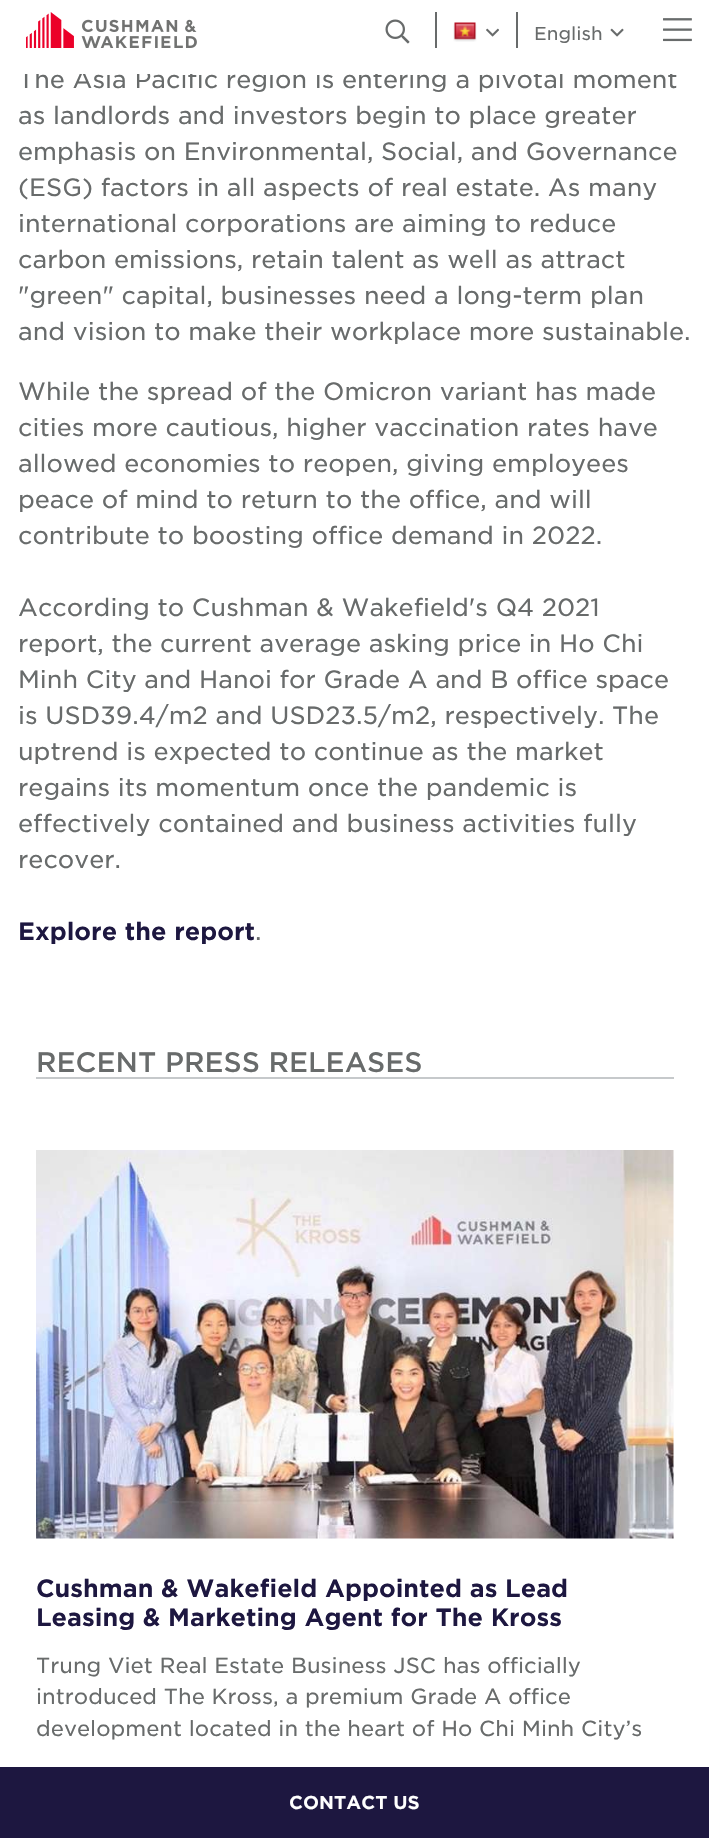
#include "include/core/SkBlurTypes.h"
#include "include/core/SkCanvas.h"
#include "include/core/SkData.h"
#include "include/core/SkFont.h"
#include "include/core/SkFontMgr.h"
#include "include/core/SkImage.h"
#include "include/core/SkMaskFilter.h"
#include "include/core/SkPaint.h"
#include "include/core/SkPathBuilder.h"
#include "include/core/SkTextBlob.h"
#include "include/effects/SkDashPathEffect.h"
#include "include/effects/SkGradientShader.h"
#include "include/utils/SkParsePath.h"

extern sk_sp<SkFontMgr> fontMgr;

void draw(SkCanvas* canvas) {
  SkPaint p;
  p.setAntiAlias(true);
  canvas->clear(SK_ColorWHITE);
  canvas->drawImageRect(SkImages::DeferredFromEncodedData(SkData::MakeFromFileName("images/1.png")), SkRect::MakeLTRB(26, 12, 197, 48), SkSamplingOptions());
  canvas->drawImageRect(SkImages::DeferredFromEncodedData(SkData::MakeFromFileName("images/2.png")), SkRect::MakeLTRB(385, 19, 410, 44), SkSamplingOptions());
  p.setColor(SkColorSetRGB(104, 107, 107));
  canvas->drawRect(SkRect::MakeLTRB(435, 12, 437, 48), p);
  canvas->drawImageRect(SkImages::DeferredFromEncodedData(SkData::MakeFromFileName("images/3.png")), SkRect::MakeLTRB(453, 22, 477, 42), SkSamplingOptions());
  canvas->drawImageRect(SkImages::DeferredFromEncodedData(SkData::MakeFromFileName("images/4.png")), SkRect::MakeLTRB(486, 28, 499, 37), SkSamplingOptions());
  canvas->drawRect(SkRect::MakeLTRB(516, 12, 518, 48), p);
  canvas->drawImageRect(SkImages::DeferredFromEncodedData(SkData::MakeFromFileName("images/5.png")), SkRect::MakeLTRB(610, 28, 624, 37), SkSamplingOptions());
  canvas->drawImageRect(SkImages::DeferredFromEncodedData(SkData::MakeFromFileName("images/6.png")), SkRect::MakeLTRB(663, 18, 692, 42), SkSamplingOptions());
  p.setColor(SkColorSetRGB(29, 23, 64));
  canvas->drawRect(SkRect::MakeLTRB(0, 1767, 709, 1838), p);
  p.setColor(SkColorSetRGB(198, 201, 203));
  canvas->drawRect(SkRect::MakeLTRB(36, 1077, 674, 1079), p);
  canvas->drawImageRect(SkImages::DeferredFromEncodedData(SkData::MakeFromFileName("images/7.png")), SkRect::MakeLTRB(36, 1150, 674, 1539), SkSamplingOptions());
  SkFont font1(fontMgr->matchFamilyStyle("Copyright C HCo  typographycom", SkFontStyle(300, SkFontStyle::kNormal_Width, SkFontStyle::kUpright_Slant)), 18);
  font1.setSubpixel(true);
  p.setColor(SkColorSetRGB(104, 107, 107));
  canvas->drawString("English", 534, 40, font1, p);
  SkFont font2(fontMgr->matchFamilyStyle("Copyright C HCo  typographycom", SkFontStyle::Normal()), 18);
  font2.setSubpixel(true);
  p.setColor(SK_ColorWHITE);
  canvas->drawString("CONTACT US", 289, 1809, font2, p);
  SkFont font3(fontMgr->matchFamilyStyle("Copyright C HCo  typographycom", SkFontStyle(300, SkFontStyle::kNormal_Width, SkFontStyle::kUpright_Slant)), 24);
  font3.setSubpixel(true);
  p.setColor(SkColorSetRGB(104, 107, 107));
  canvas->drawString("The Asia Pacific region is entering a pivotal moment", 18, 88, font3, p);
  p.setColor(SK_ColorWHITE);
  canvas->drawRect(SkRect::MakeLTRB(19, 69, 673, 74), p);
  p.setColor(SkColorSetRGB(104, 107, 107));
  canvas->drawString("as landlords and investors begin to place greater", 18, 124, font3, p);
  canvas->drawString("emphasis on Environmental, Social, and Governance", 18, 160, font3, p);
  canvas->drawString("(ESG) factors in all aspects of real estate. As many", 18, 196, font3, p);
  canvas->drawString("international corporations are aiming to reduce", 18, 232, font3, p);
  canvas->drawString("carbon emissions, retain talent as well as attract", 18, 268, font3, p);
  canvas->drawString("\"green\" capital, businesses need a long-term plan", 18, 304, font3, p);
  canvas->drawString("and vision to make their workplace more sustainable.", 18, 340, font3, p);
  canvas->drawString("While the spread of the Omicron variant has made", 18, 400, font3, p);
  canvas->drawString("cities more cautious, higher vaccination rates have", 18, 436, font3, p);
  canvas->drawString("allowed economies to reopen, giving employees", 18, 472, font3, p);
  canvas->drawString("peace of mind to return to the office, and will", 18, 508, font3, p);
  canvas->drawString("contribute to boosting office demand in 2022.", 18, 544, font3, p);
  canvas->drawString("According to Cushman & Wakefield's Q4 2021", 18, 616, font3, p);
  canvas->drawString("report, the current average asking price in Ho Chi", 18, 652, font3, p);
  canvas->drawString("Minh City and Hanoi for Grade A and B office space", 18, 688, font3, p);
  canvas->drawString("is USD39.4/m2 and USD23.5/m2, respectively. The", 18, 724, font3, p);
  canvas->drawString("uptrend is expected to continue as the market", 18, 760, font3, p);
  canvas->drawString("regains its momentum once the pandemic is", 18, 796, font3, p);
  canvas->drawString("effectively contained and business activities fully", 18, 832, font3, p);
  canvas->drawString("recover.", 18, 868, font3, p);
  SkFont font4(fontMgr->matchFamilyStyle("Copyright C HCo  typographycom", SkFontStyle::Normal()), 24);
  font4.setSubpixel(true);
  p.setColor(SkColorSetRGB(29, 23, 64));
  canvas->drawString("Explore the report", 18, 940, font4, p);
  p.setColor(SkColorSetRGB(104, 107, 107));
  canvas->drawString(".", 255, 940, font3, p);
  SkFont font5(fontMgr->matchFamilyStyle("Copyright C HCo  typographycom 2", SkFontStyle(300, SkFontStyle::kNormal_Width, SkFontStyle::kUpright_Slant)), 27);
  font5.setSubpixel(true);
  canvas->drawString("RECENT PRESS RELEASES", 36, 1072, font5, p);
  p.setColor(SkColorSetRGB(29, 23, 64));
  canvas->drawString("Cushman & Wakefield Appointed as Lead", 36, 1597, font4, p);
  canvas->drawString("Leasing & Marketing Agent for The Kross", 36, 1626, font4, p);
  SkFont font6(fontMgr->matchFamilyStyle("Copyright C HCo  typographycom", SkFontStyle(300, SkFontStyle::kNormal_Width, SkFontStyle::kUpright_Slant)), 21);
  font6.setSubpixel(true);
  p.setColor(SkColorSetRGB(104, 107, 107));
  canvas->drawString("Trung Viet Real Estate Business JSC has officially", 36, 1673, font6, p);
  canvas->drawString("introduced The Kross, a premium Grade A office", 36, 1704, font6, p);
  canvas->drawString("development located in the heart of Ho Chi Minh City’s", 36, 1736, font6, p);
}
